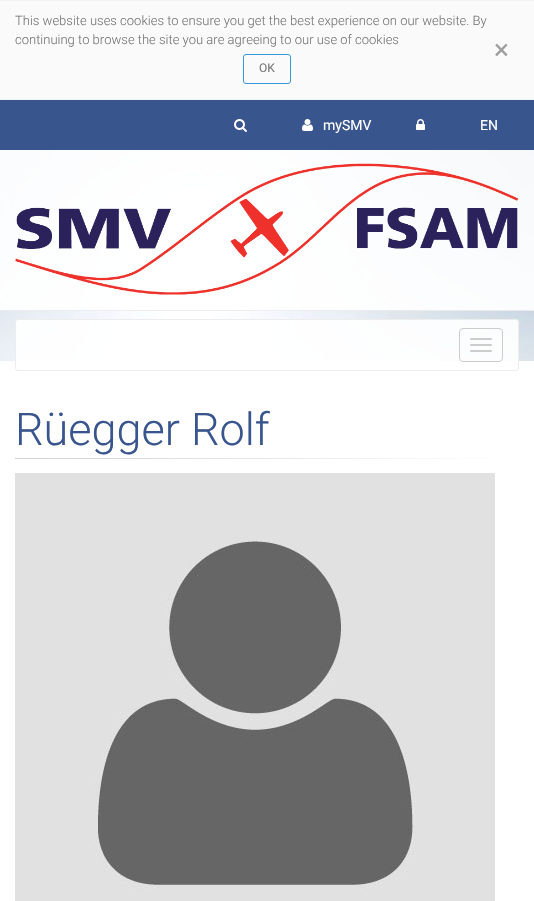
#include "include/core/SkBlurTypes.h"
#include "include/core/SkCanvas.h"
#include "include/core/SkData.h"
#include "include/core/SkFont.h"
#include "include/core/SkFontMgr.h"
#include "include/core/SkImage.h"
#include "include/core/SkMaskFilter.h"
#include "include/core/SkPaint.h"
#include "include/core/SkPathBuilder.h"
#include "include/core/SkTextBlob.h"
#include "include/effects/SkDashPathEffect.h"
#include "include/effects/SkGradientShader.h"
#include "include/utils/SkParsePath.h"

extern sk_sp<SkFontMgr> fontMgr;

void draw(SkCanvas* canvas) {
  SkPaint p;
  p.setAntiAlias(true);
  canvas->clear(SK_ColorWHITE);
  p.setColor(SkColorSetRGB(250, 250, 250));
  canvas->drawRect(SkRect::MakeLTRB(0, 1, 534, 99), p);
  p.setColor(SkColorSetRGB(243, 243, 243));
  canvas->drawRect(SkRect::MakeLTRB(0, 0, 534, 1), p);
  canvas->drawRect(SkRect::MakeLTRB(0, 99, 534, 100), p);
  p.setStyle(SkPaint::kStroke_Style);
  p.setStrokeWidth(1);
  p.setColor(SkColorSetRGB(54, 151, 217));
  canvas->drawRoundRect(SkRect::MakeLTRB(243.5f, 54.5f, 290.5f, 83.5f), 2.5f, 2.5f, p);
  p.setStyle(SkPaint::kFill_Style);
  p.setColor(SkColorSetRGB(57, 85, 142));
  canvas->drawRect(SkRect::MakeLTRB(0, 100, 534, 150), p);
  canvas->drawImageRect(SkImages::DeferredFromEncodedData(SkData::MakeFromFileName("images/1.png")), SkRect::MakeLTRB(234, 119, 247, 132), SkSamplingOptions());
  canvas->drawImageRect(SkImages::DeferredFromEncodedData(SkData::MakeFromFileName("images/2.png")), SkRect::MakeLTRB(302, 119, 313, 131), SkSamplingOptions());
  canvas->drawImageRect(SkImages::DeferredFromEncodedData(SkData::MakeFromFileName("images/3.png")), SkRect::MakeLTRB(416, 119, 425, 130), SkSamplingOptions());
  canvas->drawImageRect(SkImages::DeferredFromEncodedData(SkData::MakeFromFileName("images/5.png")), SkRect::MakeLTRB(0, 150, 534, 361), SkSamplingOptions());
  p.setColor(SkColorSetARGB(235, 255, 255, 255));
  canvas->drawRect(SkRect::MakeLTRB(0, 150, 534, 311), p);
  p.setColor(SkColorSetARGB(18, 0, 0, 0));
  canvas->drawRect(SkRect::MakeLTRB(0, 310, 534, 311), p);
  canvas->drawImageRect(SkImages::DeferredFromEncodedData(SkData::MakeFromFileName("images/4.png")), SkRect::MakeLTRB(15, 163, 519, 295), SkSamplingOptions());
  p.setColor(SkColorSetARGB(230, 255, 255, 255));
  canvas->drawRoundRect(SkRect::MakeLTRB(15.5f, 319.5f, 518.5f, 370.5f), 2.5f, 2.5f, p);
  p.setStyle(SkPaint::kStroke_Style);
  p.setColor(SkColorSetRGB(237, 237, 237));
  canvas->drawRoundRect(SkRect::MakeLTRB(15.5f, 319.5f, 518.5f, 370.5f), 2.5f, 2.5f, p);
  p.setColor(SkColorSetRGB(204, 204, 204));
  canvas->drawRoundRect(SkRect::MakeLTRB(459.5f, 328.5f, 502.5f, 361.5f), 3.5f, 3.5f, p);
  p.setStyle(SkPaint::kFill_Style);
  canvas->drawRoundRect(SkRect::MakeLTRB(470, 338, 492, 340), 1, 1, p);
  canvas->drawRoundRect(SkRect::MakeLTRB(470, 344, 492, 346), 1, 1, p);
  canvas->drawRoundRect(SkRect::MakeLTRB(470, 350, 492, 352), 1, 1, p);
  {
    const SkColor colors[] = {SkColorSetRGB(209, 209, 209), SkColorSetRGB(224, 224, 224), SkColorSetRGB(242, 242, 242), SK_ColorWHITE};
    const float stops[] = {0, 0.35f, 0.7f, 1};
    const SkPoint ends[] = {{15, 459}, {519, 459}};
    p.setShader(SkGradientShader::MakeLinear(ends, colors, stops, 4, SkTileMode::kClamp));
    p.setAlpha(255);
  }
  canvas->drawRect(SkRect::MakeLTRB(15, 458, 490, 459), p);
  canvas->drawImageRect(SkImages::DeferredFromEncodedData(SkData::MakeFromFileName("images/6.png")), SkRect::MakeLTRB(15, 473, 495, 901), SkSamplingOptions());
  SkFont font1(fontMgr->matchFamilyStyle("Roboto", SkFontStyle(300, SkFontStyle::kNormal_Width, SkFontStyle::kUpright_Slant)), 13);
  font1.setSubpixel(true);
  p.setShader(nullptr);
  p.setColor(SkColorSetRGB(119, 119, 119));
  canvas->drawString("This website uses cookies to ensure you get the best experience on our website. By", 15, 25, font1, p);
  canvas->drawString("continuing to browse the site you are agreeing to our use of cookies", 15, 44, font1, p);
  SkFont font2(fontMgr->matchFamilyStyle("Roboto", SkFontStyle::Normal()), 12);
  font2.setSubpixel(true);
  canvas->drawString("OK", 259, 72, font2, p);
  SkFont font3(fontMgr->matchFamilyStyle("Roboto", SkFontStyle::Normal()), 28);
  font3.setSubpixel(true);
  p.setColor(SkColorSetRGB(158, 158, 158));
  canvas->drawString("×", 494, 59, font3, p);
  SkFont font4(fontMgr->matchFamilyStyle("Roboto", SkFontStyle::Normal()), 14);
  font4.setSubpixel(true);
  p.setColor(SK_ColorWHITE);
  canvas->drawString("mySMV", 323, 130, font4, p);
  canvas->drawString("EN", 480, 130, font4, p);
  SkFont font5(fontMgr->matchFamilyStyle("Roboto", SkFontStyle(300, SkFontStyle::kNormal_Width, SkFontStyle::kUpright_Slant)), 45);
  font5.setSubpixel(true);
  p.setColor(SkColorSetRGB(57, 85, 142));
  canvas->drawString("Rüegger Rolf", 15, 445, font5, p);
}
